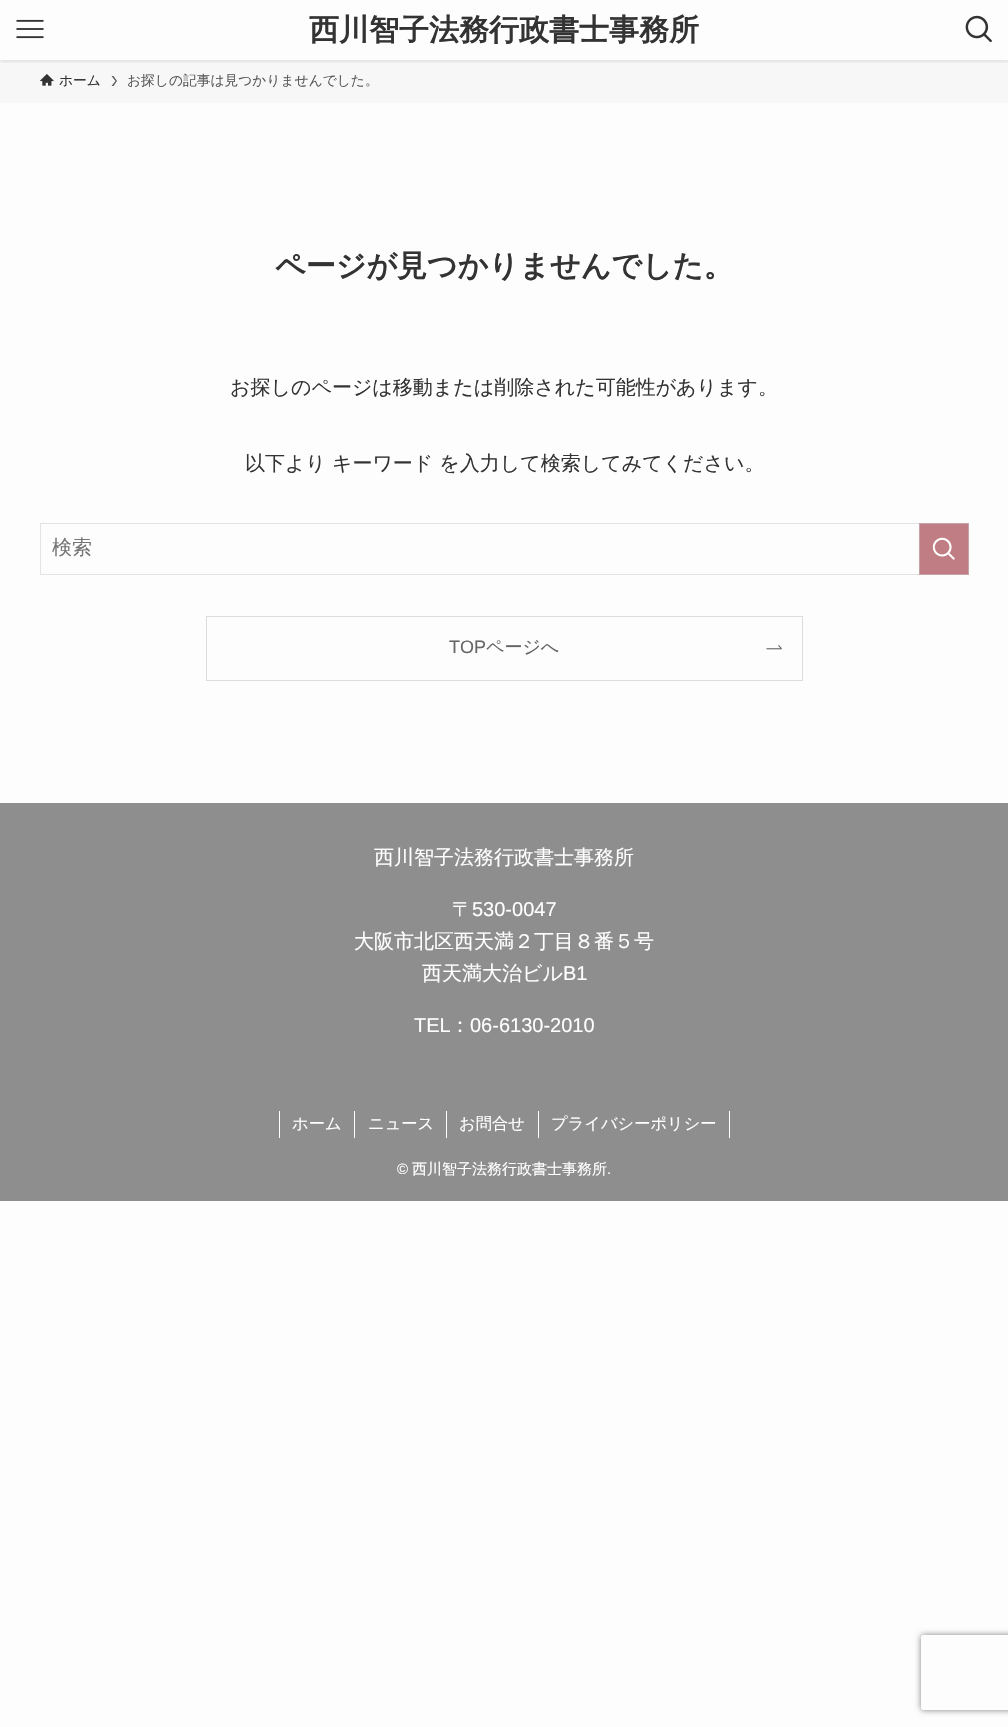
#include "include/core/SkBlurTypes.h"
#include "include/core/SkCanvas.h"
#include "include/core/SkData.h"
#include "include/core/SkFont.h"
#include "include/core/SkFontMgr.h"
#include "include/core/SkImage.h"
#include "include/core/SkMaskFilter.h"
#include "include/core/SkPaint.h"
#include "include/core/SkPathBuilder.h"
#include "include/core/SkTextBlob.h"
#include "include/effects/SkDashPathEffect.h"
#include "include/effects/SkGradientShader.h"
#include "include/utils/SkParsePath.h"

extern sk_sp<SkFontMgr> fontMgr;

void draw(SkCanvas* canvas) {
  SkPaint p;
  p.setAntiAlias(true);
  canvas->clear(SkColorSetRGB(253, 253, 253));
  p.setColor(SkColorSetRGB(247, 247, 247));
  canvas->drawRect(SkRect::MakeLTRB(0, 60, 1008, 103), p);
  canvas->save();
  canvas->clipRect(SkRect::MakeLTRB(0, 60, 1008, 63));
  p.setColor(SkColorSetARGB(31, 0, 0, 0));
  p.setMaskFilter(SkMaskFilter::MakeBlur(kNormal_SkBlurStyle, 2.5f));
  canvas->drawRect(SkRect::MakeLTRB(0, 1, 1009, 61), p);
  p.setMaskFilter(nullptr);
  canvas->restore();
  canvas->drawImageRect(SkImages::DeferredFromEncodedData(SkData::MakeFromFileName("images/1.png")), SkRect::MakeLTRB(16, 19, 44, 39), SkSamplingOptions());
  canvas->drawImageRect(SkImages::DeferredFromEncodedData(SkData::MakeFromFileName("images/2.png")), SkRect::MakeLTRB(965, 15, 992, 43), SkSamplingOptions());
  canvas->drawImageRect(SkImages::DeferredFromEncodedData(SkData::MakeFromFileName("images/3.png")), SkRect::MakeLTRB(40, 74, 54, 86), SkSamplingOptions());
  p.setColor(SkColorSetRGB(90, 90, 90));
  canvas->drawPath(SkPathBuilder().moveTo(113.5f, 76).lineTo(111.5f, 76).lineTo(115.5f, 81).lineTo(111.5f, 86).lineTo(113.5f, 86).lineTo(117, 81).close().detach(), p);
  p.setStyle(SkPaint::kStroke_Style);
  p.setStrokeWidth(1);
  p.setColor(SkColorSetRGB(227, 227, 227));
  canvas->drawRect(SkRect::MakeLTRB(40.5f, 523.5f, 968.5f, 574.5f), p);
  p.setStyle(SkPaint::kFill_Style);
  p.setColor(SkColorSetRGB(192, 126, 132));
  canvas->drawRect(SkRect::MakeLTRB(919.5f, 523.5f, 968.5f, 574.5f), p);
  p.setStyle(SkPaint::kStroke_Style);
  p.setColor(SkColorSetRGB(196, 163, 166));
  canvas->drawRect(SkRect::MakeLTRB(919.5f, 523.5f, 968.5f, 574.5f), p);
  canvas->drawImageRect(SkImages::DeferredFromEncodedData(SkData::MakeFromFileName("images/4.png")), SkRect::MakeLTRB(932, 537, 955, 560), SkSamplingOptions());
  p.setColor(SkColorSetRGB(220, 220, 220));
  canvas->drawRect(SkRect::MakeLTRB(206.5f, 616.5f, 802.5f, 680.5f), p);
  canvas->drawImageRect(SkImages::DeferredFromEncodedData(SkData::MakeFromFileName("images/5.png")), SkRect::MakeLTRB(766, 645, 782, 650), SkSamplingOptions());
  p.setStyle(SkPaint::kFill_Style);
  p.setColor(SkColorSetRGB(142, 142, 142));
  canvas->drawRect(SkRect::MakeLTRB(0, 803, 1008, 1201), p);
  p.setColor(SK_ColorWHITE);
  canvas->drawRect(SkRect::MakeLTRB(354, 1111, 355, 1138), p);
  canvas->drawRect(SkRect::MakeLTRB(279, 1111, 280, 1138), p);
  canvas->drawRect(SkRect::MakeLTRB(446, 1111, 447, 1138), p);
  canvas->drawRect(SkRect::MakeLTRB(538, 1111, 539, 1138), p);
  canvas->drawRect(SkRect::MakeLTRB(729, 1111, 730, 1138), p);
  canvas->save();
  canvas->clipPath(SkPathBuilder(SkPathFillType::kEvenOdd).moveTo(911, 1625).lineTo(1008, 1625).lineTo(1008, 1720).lineTo(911, 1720).close().moveTo(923.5f, 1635).lineTo(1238.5f, 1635).cubicTo(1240, 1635, 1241, 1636, 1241, 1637.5f).lineTo(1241, 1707.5f).cubicTo(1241, 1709, 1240, 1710, 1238.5f, 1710).lineTo(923.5f, 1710).cubicTo(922, 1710, 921, 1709, 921, 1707.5f).lineTo(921, 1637.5f).cubicTo(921, 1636, 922, 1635, 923.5f, 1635).close().detach(), true);
  p.setColor(SkColorSetRGB(128, 128, 128));
  p.setMaskFilter(SkMaskFilter::MakeBlur(kNormal_SkBlurStyle, 3));
  canvas->drawRoundRect(SkRect::MakeLTRB(921, 1635, 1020, 1710), 2.5f, 2.5f, p);
  p.setMaskFilter(nullptr);
  canvas->restore();
  SkFont font1(fontMgr->matchFamilyStyle("WenQuanYi Zen Hei", SkFontStyle::Bold()), 30);
  font1.setSubpixel(true);
  p.setColor(SkColorSetRGB(51, 51, 51));
  canvas->drawString("西川智子法務行政書士事務所", 309, 40, font1, p);
  SkFont font2(fontMgr->matchFamilyStyle("WenQuanYi Zen Hei", SkFontStyle(500, SkFontStyle::kNormal_Width, SkFontStyle::kUpright_Slant)), 13.75f);
  font2.setSubpixel(true);
  canvas->drawString("ホーム", 59, 85, font2, p);
  p.setColor(SkColorSetRGB(90, 90, 90));
  canvas->drawString("お探しの記事は見つかりませんでした。", 127, 85, font2, p);
  p.setColor(SkColorSetRGB(51, 51, 51));
  canvas->drawString("ページが見つかりませんでした。", 275, 276, font1, p);
  SkFont font3(fontMgr->matchFamilyStyle("WenQuanYi Zen Hei", SkFontStyle(500, SkFontStyle::kNormal_Width, SkFontStyle::kUpright_Slant)), 20);
  font3.setSubpixel(true);
  canvas->drawString("お探しのページは移動または削除された可能性があります。", 230, 394, font3, p);
  canvas->drawString("以下より キーワード を入力して検索してみてください。", 245, 470, font3, p);
  p.setColor(SkColorSetRGB(117, 117, 117));
  canvas->drawString("検索", 52, 554, font3, p);
  SkFont font4(fontMgr->matchFamilyStyle("Liberation Sans", SkFontStyle::Normal()), 18);
  font4.setSubpixel(true);
  p.setColor(SkColorSetRGB(102, 102, 102));
  canvas->drawString("TOP", 449, 653, font4, p);
  SkFont font5(fontMgr->matchFamilyStyle("WenQuanYi Zen Hei", SkFontStyle(500, SkFontStyle::kNormal_Width, SkFontStyle::kUpright_Slant)), 18);
  font5.setSubpixel(true);
  canvas->drawString("ページへ", 486, 653, font5, p);
  p.setColor(SK_ColorWHITE);
  canvas->drawString("西川智子法務行政書士事務所", 374, 864, font3, p);
  canvas->drawString("〒", 452, 916, font3, p);
  SkFont font6(fontMgr->matchFamilyStyle("Liberation Sans", SkFontStyle::Normal()), 20);
  font6.setSubpixel(true);
  canvas->drawString("530-0047", 472, 916, font6, p);
  canvas->drawString("大阪市北区西天満２丁目８番５号", 354, 948, font3, p);
  canvas->drawString("西天満大治ビル", 422, 980, font3, p);
  canvas->drawString("B1", 563, 980, font6, p);
  canvas->drawString("TEL", 414, 1032, font6, p);
  canvas->drawString("：", 450, 1032, font3, p);
  canvas->drawString("06-6130-2010", 470, 1032, font6, p);
  SkFont font7(fontMgr->matchFamilyStyle("WenQuanYi Zen Hei", SkFontStyle(500, SkFontStyle::kNormal_Width, SkFontStyle::kUpright_Slant)), 16.25f);
  font7.setSubpixel(true);
  canvas->drawString("ホーム", 292, 1129, font7, p);
  canvas->drawString("ニュース", 368, 1129, font7, p);
  canvas->drawString("お問合せ", 459, 1129, font7, p);
  canvas->drawString("プライバシーポリシー", 551, 1129, font7, p);
  SkFont font8(fontMgr->matchFamilyStyle("Liberation Sans", SkFontStyle::Normal()), 15);
  font8.setSubpixel(true);
  canvas->drawString("©", 397, 1174, font8, p);
  SkFont font9(fontMgr->matchFamilyStyle("WenQuanYi Zen Hei", SkFontStyle(500, SkFontStyle::kNormal_Width, SkFontStyle::kUpright_Slant)), 15);
  font9.setSubpixel(true);
  canvas->drawString("西川智子法務行政書士事務所", 412, 1174, font9, p);
  canvas->drawString(".", 607, 1174, font8, p);
}
